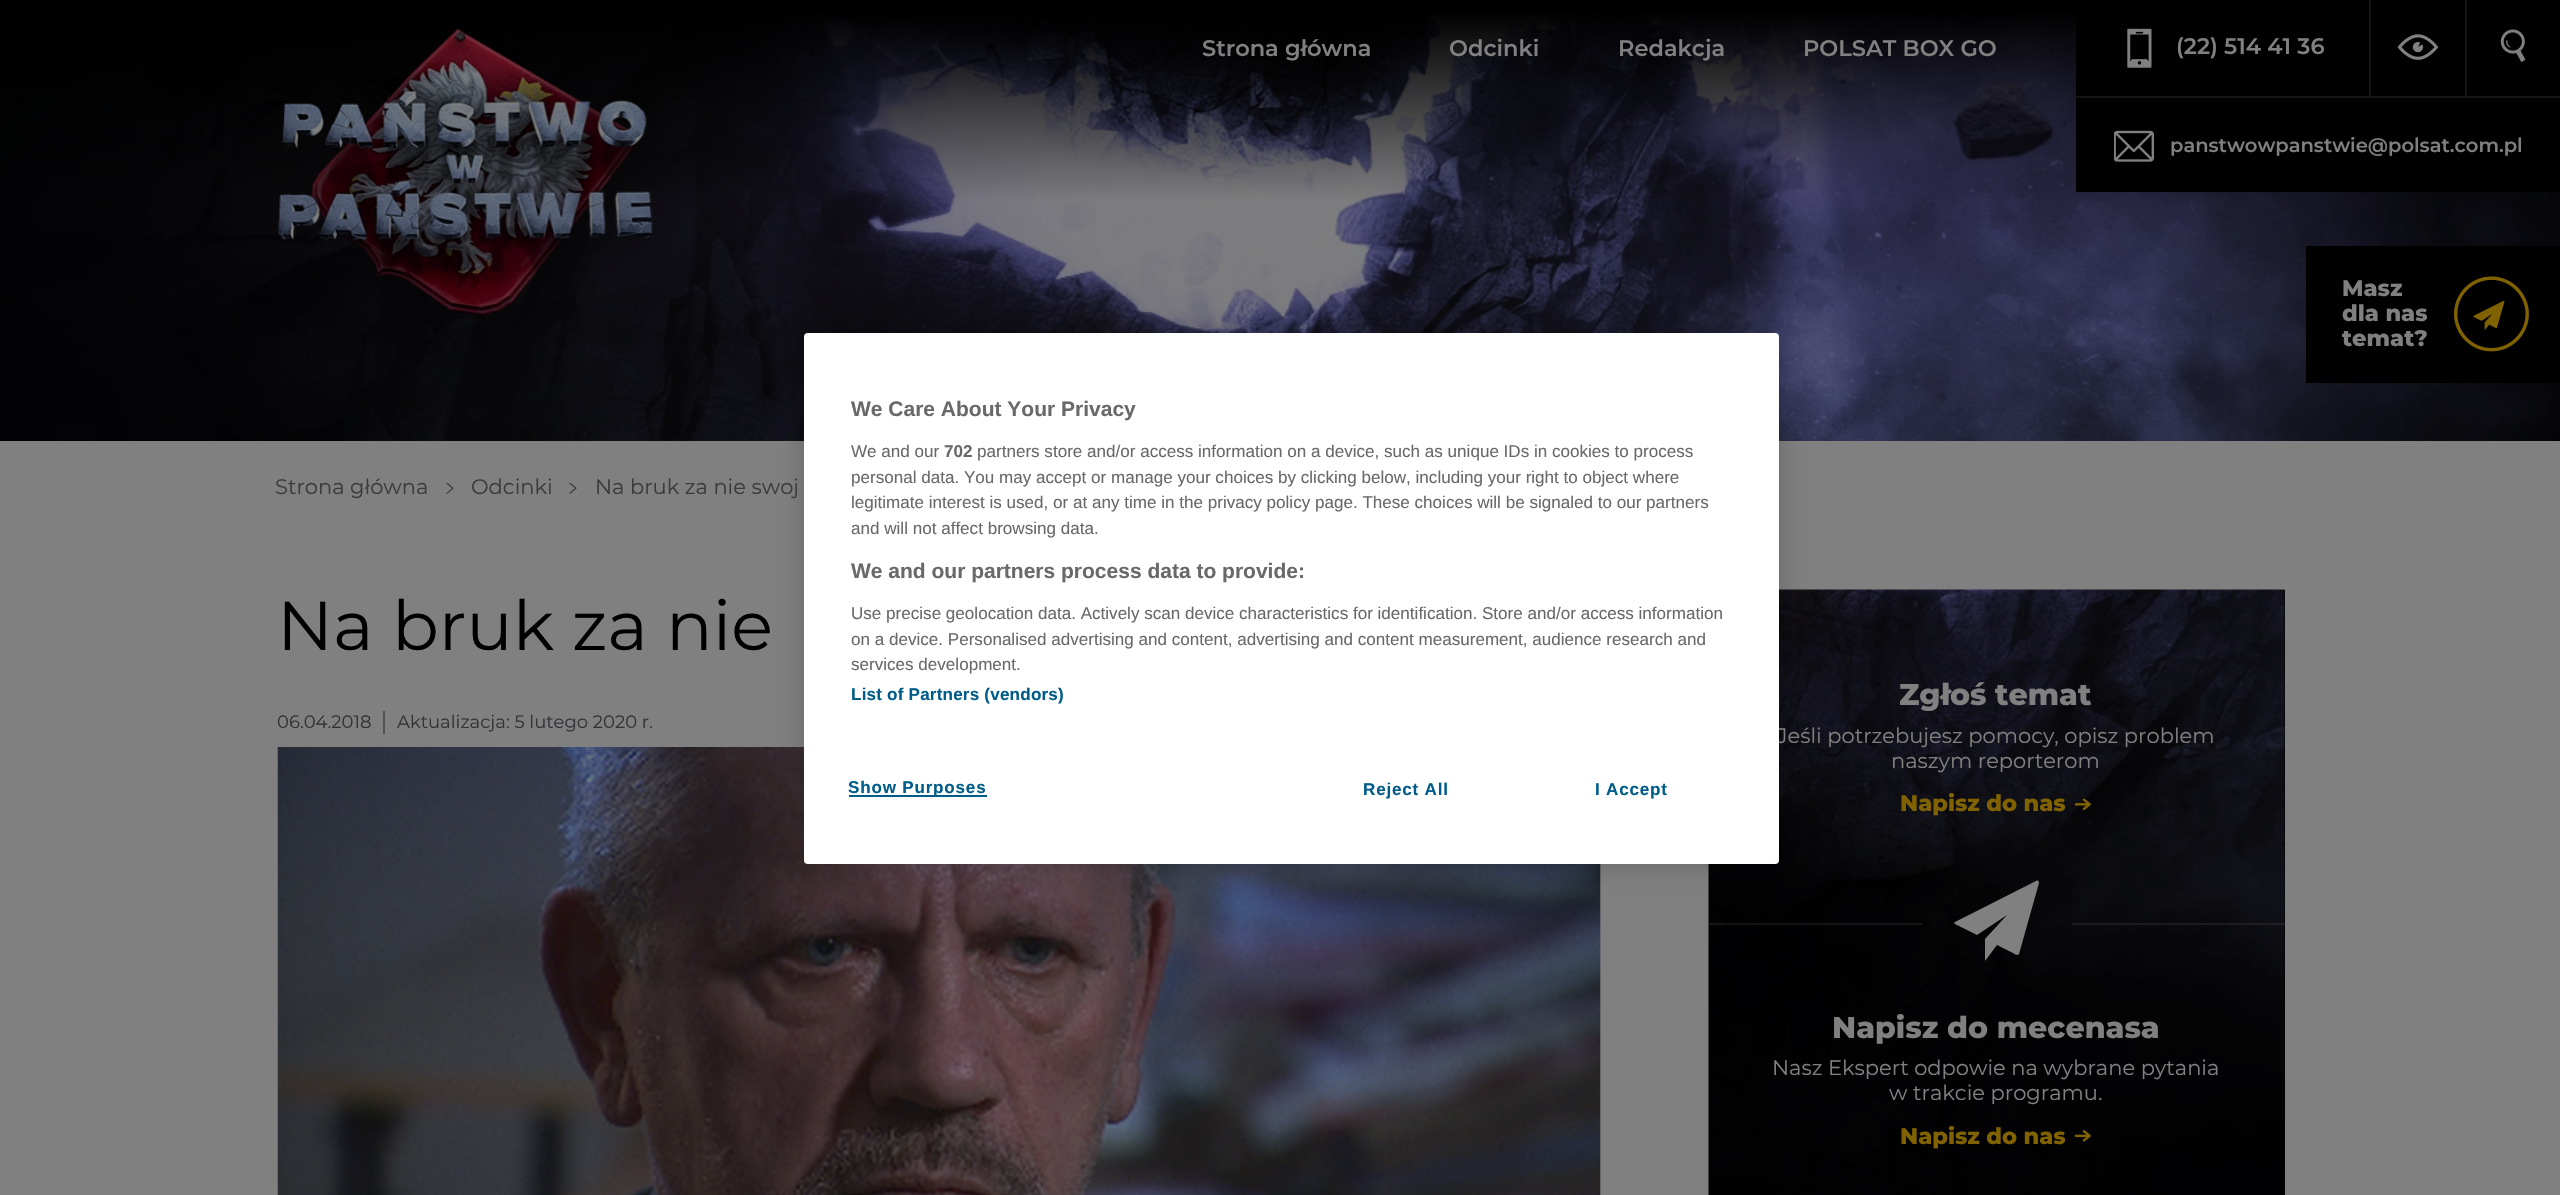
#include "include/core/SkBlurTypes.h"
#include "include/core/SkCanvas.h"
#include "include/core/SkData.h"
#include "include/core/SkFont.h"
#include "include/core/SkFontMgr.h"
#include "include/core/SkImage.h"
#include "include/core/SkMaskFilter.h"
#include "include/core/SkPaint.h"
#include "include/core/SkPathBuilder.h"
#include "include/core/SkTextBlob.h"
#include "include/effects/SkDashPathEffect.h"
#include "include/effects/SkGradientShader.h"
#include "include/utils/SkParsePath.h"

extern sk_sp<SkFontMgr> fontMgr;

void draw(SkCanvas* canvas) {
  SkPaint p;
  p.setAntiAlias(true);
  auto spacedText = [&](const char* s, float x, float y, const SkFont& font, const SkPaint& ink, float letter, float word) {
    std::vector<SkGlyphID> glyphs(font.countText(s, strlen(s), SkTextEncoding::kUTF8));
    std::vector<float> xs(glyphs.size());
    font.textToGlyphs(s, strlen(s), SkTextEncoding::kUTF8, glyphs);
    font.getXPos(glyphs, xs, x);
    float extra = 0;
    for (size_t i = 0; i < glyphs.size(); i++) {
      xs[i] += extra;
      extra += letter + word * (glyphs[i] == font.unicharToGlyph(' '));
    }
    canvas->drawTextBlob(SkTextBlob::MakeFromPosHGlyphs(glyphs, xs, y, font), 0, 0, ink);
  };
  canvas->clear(SkColorSetRGB(128, 128, 128));
  canvas->drawImageRect(SkImages::DeferredFromEncodedData(SkData::MakeFromFileName("images/1.png")), SkRect::MakeLTRB(0, 0, 2560, 441), SkSamplingOptions());
  canvas->drawImageRect(SkImages::DeferredFromEncodedData(SkData::MakeFromFileName("images/2.png")), SkRect::MakeLTRB(277, 28, 653, 316), SkSamplingOptions());
  p.setColor(SK_ColorBLACK);
  canvas->drawRect(SkRect::MakeLTRB(2371, 19, 2465, 96), p);
  p.setColor(SkColorSetRGB(20, 20, 20));
  canvas->drawRect(SkRect::MakeLTRB(2369, 0, 2371, 96), p);
  canvas->drawImageRect(SkImages::DeferredFromEncodedData(SkData::MakeFromFileName("images/3.png")), SkRect::MakeLTRB(2397, 34, 2439, 60), SkSamplingOptions());
  p.setColor(SK_ColorBLACK);
  canvas->drawRect(SkRect::MakeLTRB(2467, 26, 2560, 96), p);
  p.setColor(SkColorSetRGB(20, 20, 20));
  canvas->drawRect(SkRect::MakeLTRB(2465, 0, 2467, 96), p);
  canvas->drawImageRect(SkImages::DeferredFromEncodedData(SkData::MakeFromFileName("images/4.png")), SkRect::MakeLTRB(2500, 29, 2526, 62), SkSamplingOptions());
  p.setColor(SK_ColorBLACK);
  canvas->drawRect(SkRect::MakeLTRB(2076, 14, 2369, 96), p);
  canvas->drawImageRect(SkImages::DeferredFromEncodedData(SkData::MakeFromFileName("images/5.png")), SkRect::MakeLTRB(2127, 28, 2152, 68), SkSamplingOptions());
  canvas->drawRect(SkRect::MakeLTRB(2076, 98, 2560, 192), p);
  p.setColor(SkColorSetRGB(20, 20, 20));
  canvas->drawRect(SkRect::MakeLTRB(2076, 96, 2560, 98), p);
  canvas->drawImageRect(SkImages::DeferredFromEncodedData(SkData::MakeFromFileName("images/6.png")), SkRect::MakeLTRB(2114, 130, 2154, 162), SkSamplingOptions());
  p.setColor(SK_ColorBLACK);
  canvas->drawRect(SkRect::MakeLTRB(2306, 246, 2560, 383), p);
  canvas->drawImageRect(SkImages::DeferredFromEncodedData(SkData::MakeFromFileName("images/7.png")), SkRect::MakeLTRB(2454, 276, 2529, 352), SkSamplingOptions());
  p.setColor(SkColorSetRGB(120, 121, 122));
  canvas->drawRect(SkRect::MakeLTRB(1600, 864, 1601, 1195), p);
  canvas->drawImageRect(SkImages::DeferredFromEncodedData(SkData::MakeFromFileName("images/9.png")), SkRect::MakeLTRB(277, 747, 1601, 1195), SkSamplingOptions());
  p.setColor(SK_ColorBLACK);
  canvas->drawRect(SkRect::MakeLTRB(2284, 590, 2285, 1195), p);
  canvas->drawImageRect(SkImages::DeferredFromEncodedData(SkData::MakeFromFileName("images/10.png")), SkRect::MakeLTRB(1708, 589, 2285, 1195), SkSamplingOptions());
  p.setColor(SkColorSetARGB(51, 0, 0, 0));
  p.setMaskFilter(SkMaskFilter::MakeBlur(kNormal_SkBlurStyle, 13.5f));
  canvas->drawRoundRect(SkRect::MakeLTRB(804, 333, 1779, 864), 4, 4, p);
  p.setMaskFilter(nullptr);
  canvas->drawImageRect(SkImages::DeferredFromEncodedData(SkData::MakeFromFileName("images/8.png")), SkRect::MakeLTRB(446, 482, 454, 494), SkSamplingOptions());
  canvas->drawImageRect(SkImages::DeferredFromEncodedData(SkData::MakeFromFileName("images/8.png")), SkRect::MakeLTRB(569, 482, 577, 494), SkSamplingOptions());
  p.setColor(SkColorSetRGB(82, 84, 87));
  canvas->drawRect(SkRect::MakeLTRB(383, 711, 385, 734), p);
  canvas->drawImageRect(SkImages::DeferredFromEncodedData(SkData::MakeFromFileName("images/11.png")), SkRect::MakeLTRB(2074, 798, 2091, 811), SkSamplingOptions());
  p.setColor(SkColorSetARGB(51, 97, 97, 97));
  canvas->drawRect(SkRect::MakeLTRB(1709, 923, 1922, 925), p);
  p.setColor(SkColorSetRGB(128, 128, 128));
  canvas->drawPath(SkPathBuilder().moveTo(2036, 881).lineTo(1955, 922).cubicTo(1954, 922, 1954, 924, 1955, 924).lineTo(1977, 935).lineTo(2007, 915).lineTo(1985, 939).lineTo(1985, 961).lineTo(1997, 945).lineTo(2013, 953).cubicTo(2014, 954, 2018, 956, 2019, 954).lineTo(2039, 883).cubicTo(2039, 881, 2038, 880, 2036, 881).close().detach(), p);
  p.setColor(SkColorSetARGB(51, 97, 97, 97));
  canvas->drawRect(SkRect::MakeLTRB(2072, 923, 2285, 925), p);
  canvas->drawImageRect(SkImages::DeferredFromEncodedData(SkData::MakeFromFileName("images/12.png")), SkRect::MakeLTRB(2074, 1130, 2091, 1142), SkSamplingOptions());
  SkFont font1(fontMgr->matchFamilyStyle("Montserrat", SkFontStyle(600, SkFontStyle::kNormal_Width, SkFontStyle::kUpright_Slant)), 22.5f);
  font1.setSubpixel(true);
  p.setColor(SkColorSetRGB(128, 128, 128));
  canvas->drawString("Strona główna", 1202, 56, font1, p);
  canvas->drawString("Odcinki", 1449, 56, font1, p);
  canvas->drawString("Redakcja", 1618, 56, font1, p);
  canvas->drawString("POLSAT BOX GO", 1803, 56, font1, p);
  canvas->drawString("(22) 514 41 36", 2176, 54, font1, p);
  SkFont font2(fontMgr->matchFamilyStyle("Montserrat", SkFontStyle(600, SkFontStyle::kNormal_Width, SkFontStyle::kUpright_Slant)), 19.5f);
  font2.setSubpixel(true);
  canvas->drawString("panstwowpanstwie@polsat.com.pl", 2170, 152, font2, p);
  SkFont font3(fontMgr->matchFamilyStyle("Montserrat", SkFontStyle(800, SkFontStyle::kNormal_Width, SkFontStyle::kUpright_Slant)), 22.5f);
  font3.setSubpixel(true);
  canvas->drawString("Masz", 2342, 296, font3, p);
  canvas->drawString("dla nas", 2342, 321, font3, p);
  canvas->drawString("temat?", 2342, 346, font3, p);
  SkFont font4(fontMgr->matchFamilyStyle("Montserrat", SkFontStyle::Normal()), 21);
  font4.setSubpixel(true);
  p.setColor(SkColorSetRGB(59, 59, 59));
  canvas->drawString("Strona główna", 275, 494, font4, p);
  canvas->drawString("Odcinki", 471, 494, font4, p);
  canvas->drawString("Na bruk za nie swoj", 595, 494, font4, p);
  SkFont font5(fontMgr->matchFamilyStyle("Montserrat", SkFontStyle::Normal()), 69);
  font5.setSubpixel(true);
  p.setColor(SK_ColorBLACK);
  canvas->drawString("Na bruk za nie", 277, 650, font5, p);
  SkFont font6(fontMgr->matchFamilyStyle("Montserrat", SkFontStyle::Normal()), 18);
  font6.setSubpixel(true);
  p.setColor(SkColorSetRGB(49, 51, 52));
  canvas->drawString("06.04.2018", 277, 728, font6, p);
  canvas->drawString("Aktualizacja: 5 lutego 2020 r.", 397, 728, font6, p);
  SkFont font7(fontMgr->matchFamilyStyle("Montserrat", SkFontStyle(800, SkFontStyle::kNormal_Width, SkFontStyle::kUpright_Slant)), 30);
  font7.setSubpixel(true);
  p.setColor(SkColorSetRGB(128, 128, 128));
  canvas->drawString("Zgłoś temat", 1899, 705, font7, p);
  canvas->drawString("Jeśli potrzebujesz pomocy, opisz problem", 1777, 743, font4, p);
  p.setColor(SK_ColorWHITE);
  canvas->drawRoundRect(SkRect::MakeLTRB(804, 333, 1779, 864), 4, 4, p);
  SkFont font8(fontMgr->matchFamilyStyle("Liberation Sans", SkFontStyle::Bold()), 17.07f);
  font8.setSubpixel(true);
  p.setColor(SkColorSetRGB(0, 92, 137));
  spacedText("List of Partners (vendors)", 851, 700, font8, p, 0.2f, 0);
  SkFont font9(fontMgr->matchFamilyStyle("Liberation Sans", SkFontStyle::Normal()), 17.07f);
  font9.setSubpixel(true);
  p.setColor(SkColorSetRGB(105, 105, 105));
  canvas->drawString("services development.", 851, 670, font9, p);
  canvas->drawString("on a device. Personalised advertising and content, advertising and content measurement, audience research and", 851, 645, font9, p);
  canvas->drawString("Use precise geolocation data. Actively scan device characteristics for identification. Store and/or access information", 851, 619, font9, p);
  SkFont font10(fontMgr->matchFamilyStyle("Liberation Sans", SkFontStyle::Bold()), 21);
  font10.setSubpixel(true);
  canvas->drawString("We and our partners process data to provide:", 851, 578, font10, p);
  canvas->drawString("and will not affect browsing data.", 851, 534, font9, p);
  canvas->drawString("legitimate interest is used, or at any time in the privacy policy page. These choices will be signaled to our partners", 851, 508, font9, p);
  canvas->drawString("personal data. You may accept or manage your choices by clicking below, including your right to object where", 851, 483, font9, p);
  canvas->drawString("partners store and/or access information on a device, such as unique IDs in cookies to process", 977, 457, font9, p);
  canvas->drawString("702", 944, 457, font8, p);
  canvas->drawString("We and our", 851, 457, font9, p);
  canvas->drawString("We Care About Your Privacy", 851, 416, font10, p);
  p.setColor(SK_ColorWHITE);
  canvas->drawRect(SkRect::MakeLTRB(807, 333, 1776, 334), p);
  {
    const SkColor colors[] = {SkColorSetRGB(204, 204, 204), SK_ColorWHITE};
    const float stops[] = {0, 1};
    SkMatrix m = SkMatrix::Translate(1292, 333).preScale(485, 15);
    p.setShader(SkGradientShader::MakeRadial({0, 0}, 1, colors, stops, 2, SkTileMode::kClamp, 0, &m));
    p.setAlpha(255);
  }
  canvas->drawRect(SkRect::MakeLTRB(831, 333, 1753, 334), p);
  {
    const SkColor colors[] = {SK_ColorWHITE, SkColorSetARGB(0, 255, 255, 255)};
    const float stops[] = {0.33f, 1};
    const SkPoint ends[] = {{1292, 333}, {1292, 378}};
    p.setShader(SkGradientShader::MakeLinear(ends, colors, stops, 2, SkTileMode::kClamp));
    p.setAlpha(255);
  }
  canvas->drawRect(SkRect::MakeLTRB(831, 333, 1753, 334), p);
  p.setShader(nullptr);
  p.setColor(SkColorSetRGB(0, 92, 137));
  spacedText("I Accept", 1595, 795, font8, p, 0.8f, 0);
  spacedText("Reject All", 1363, 795, font8, p, 0.8f, 0);
  canvas->drawRect(SkRect::MakeLTRB(849, 795, 987, 797), p);
  spacedText("Show Purposes", 848, 793, font8, p, 0.8f, 0);
  p.setColor(SkColorSetRGB(128, 128, 128));
  canvas->drawString("naszym reporterom", 1891, 768, font4, p);
  p.setColor(SkColorSetRGB(128, 99, 0));
  canvas->drawString("Napisz do nas", 1900, 811, font3, p);
  p.setColor(SkColorSetRGB(128, 128, 128));
  canvas->drawString("Napisz do mecenasa", 1832, 1038, font7, p);
  canvas->drawString("Nasz Ekspert odpowie na wybrane pytania", 1772, 1075, font4, p);
  canvas->drawString("w trakcie programu.", 1889, 1100, font4, p);
  p.setColor(SkColorSetRGB(128, 99, 0));
  canvas->drawString("Napisz do nas", 1900, 1144, font3, p);
}
